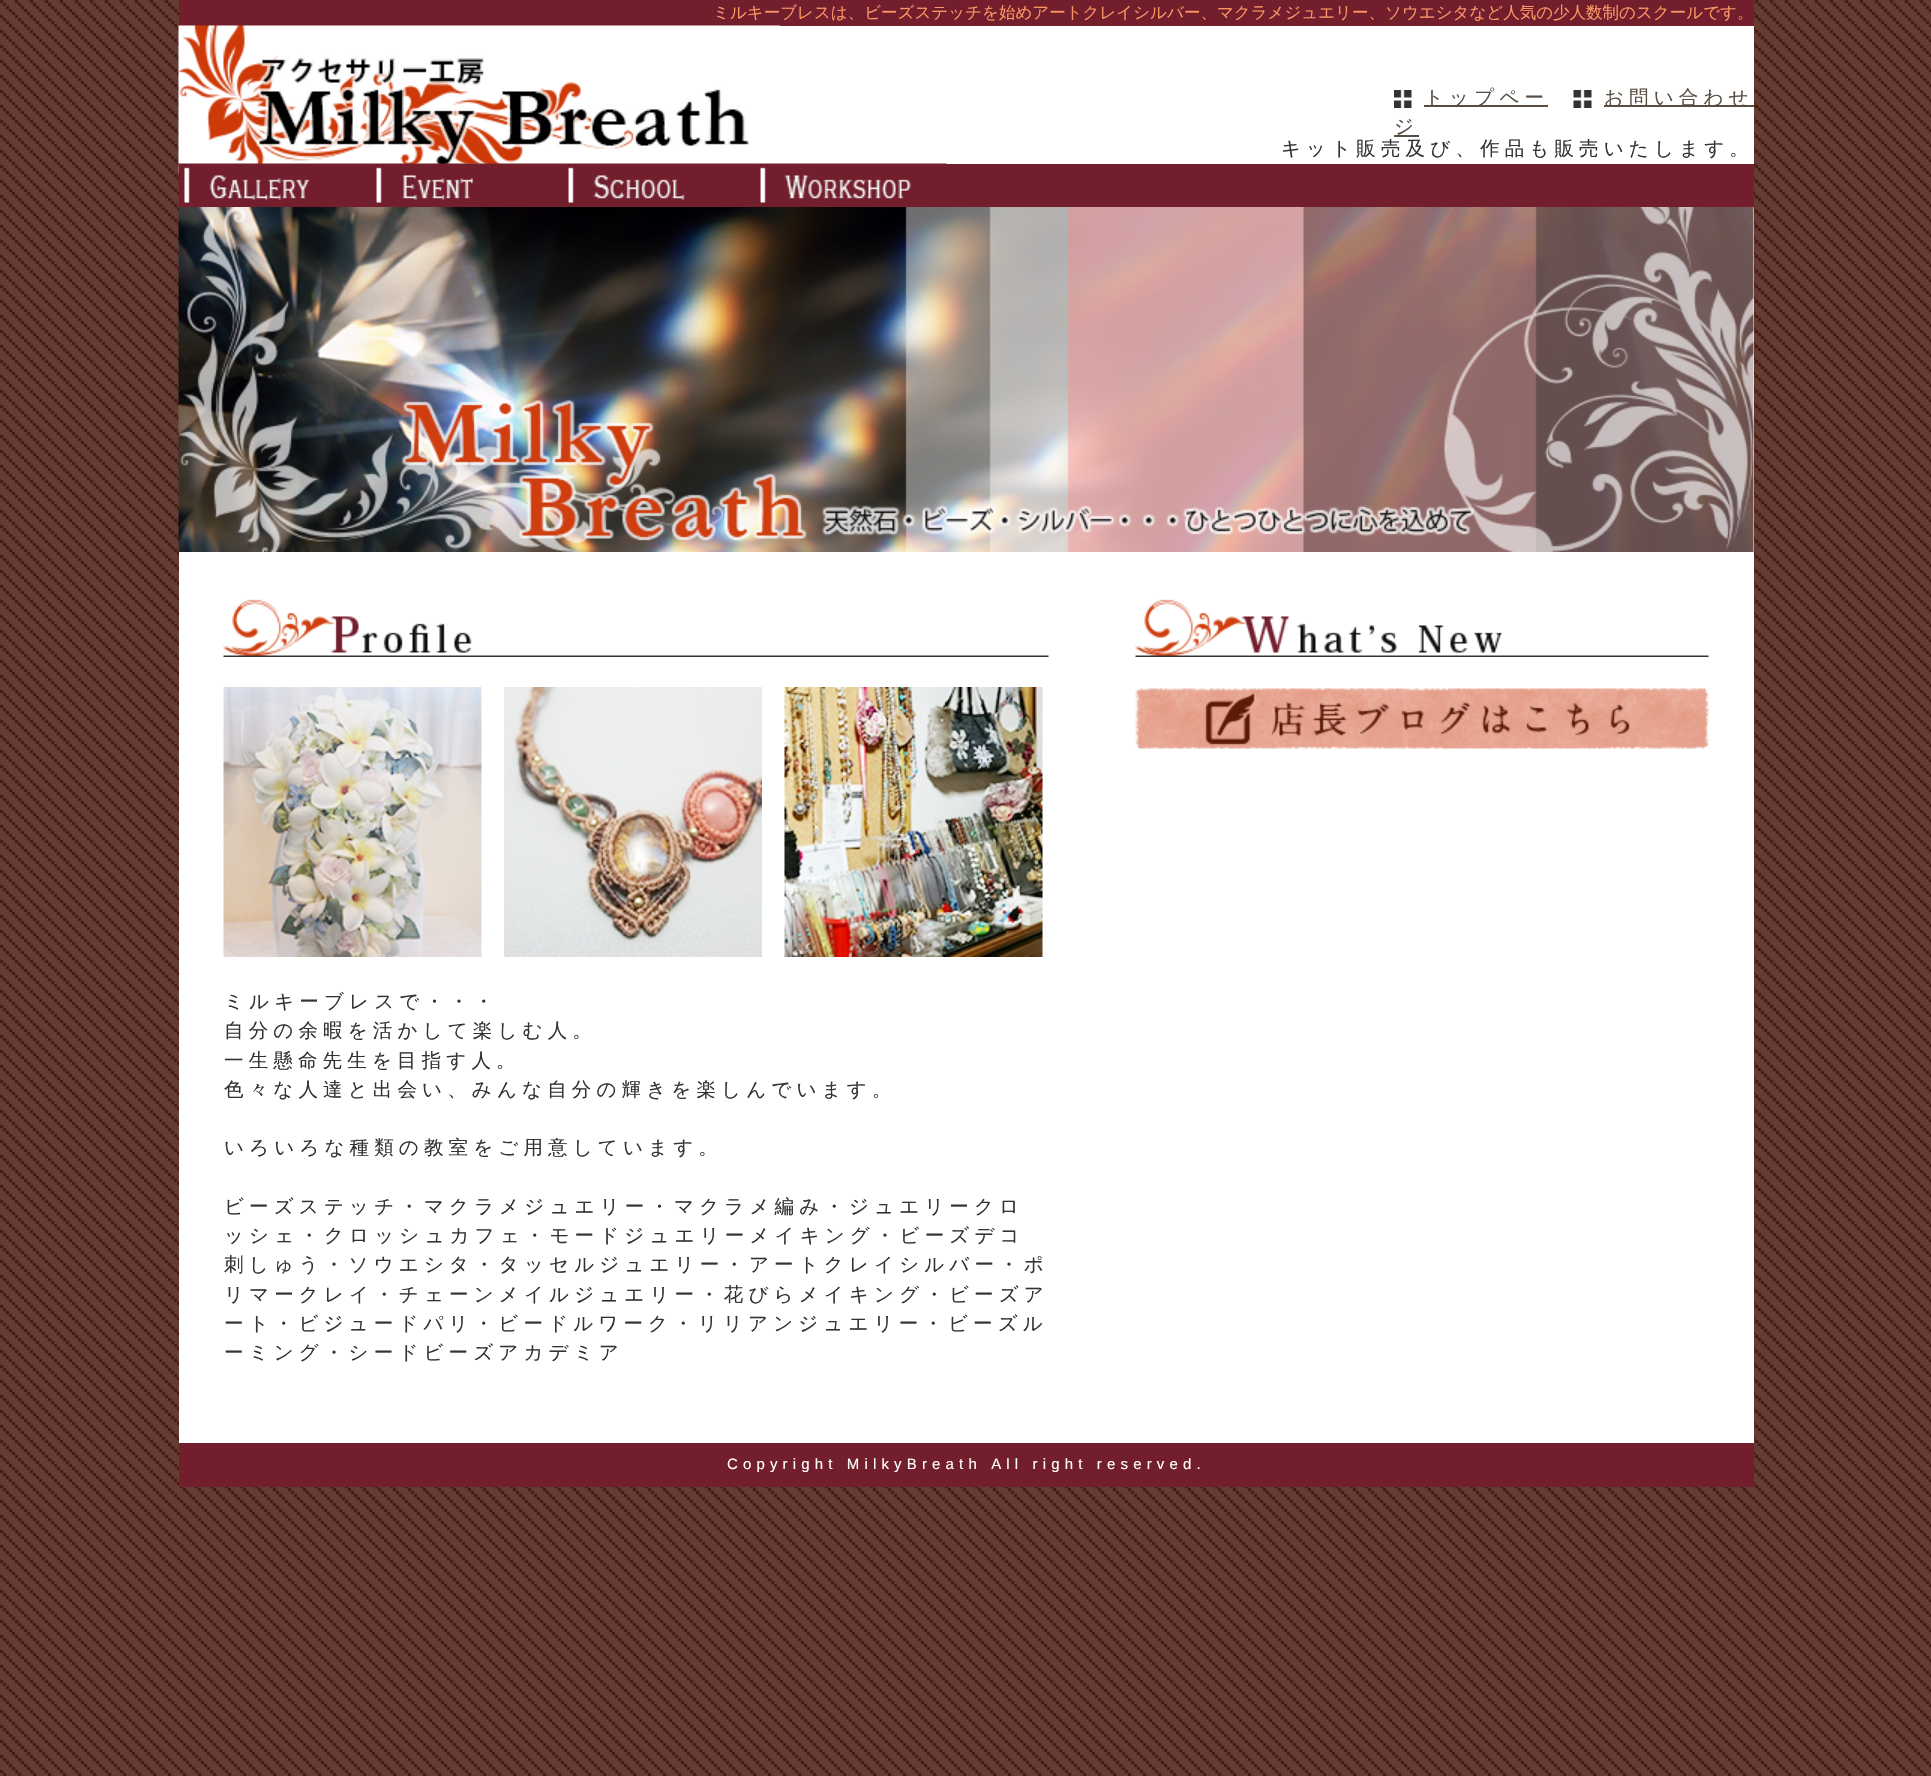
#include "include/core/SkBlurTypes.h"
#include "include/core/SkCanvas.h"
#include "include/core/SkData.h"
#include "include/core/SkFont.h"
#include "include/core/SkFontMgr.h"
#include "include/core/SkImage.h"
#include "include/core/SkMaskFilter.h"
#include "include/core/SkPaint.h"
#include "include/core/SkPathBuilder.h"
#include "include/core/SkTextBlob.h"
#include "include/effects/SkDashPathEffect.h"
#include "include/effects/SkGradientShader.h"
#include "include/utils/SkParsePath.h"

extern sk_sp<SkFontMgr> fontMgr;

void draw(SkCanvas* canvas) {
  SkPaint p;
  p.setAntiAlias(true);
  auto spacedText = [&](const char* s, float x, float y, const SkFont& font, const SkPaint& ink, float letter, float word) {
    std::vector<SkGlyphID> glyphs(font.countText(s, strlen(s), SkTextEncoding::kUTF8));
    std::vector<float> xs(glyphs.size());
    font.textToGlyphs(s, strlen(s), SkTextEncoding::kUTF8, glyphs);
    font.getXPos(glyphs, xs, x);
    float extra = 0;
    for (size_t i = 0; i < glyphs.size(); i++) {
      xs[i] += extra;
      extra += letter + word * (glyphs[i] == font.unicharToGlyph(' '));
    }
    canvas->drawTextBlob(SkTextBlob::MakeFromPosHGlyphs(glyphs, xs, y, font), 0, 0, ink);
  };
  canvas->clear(SK_ColorWHITE);
  canvas->drawImageRect(SkImages::DeferredFromEncodedData(SkData::MakeFromFileName("images/1.png")), SkRect::MakeLTRB(0, 0, 1931, 1776), SkSamplingOptions());
  p.setColor(SK_ColorWHITE);
  canvas->drawRect(SkRect::MakeLTRB(780, 26, 1754, 164), p);
  p.setColor(SkColorSetRGB(114, 30, 45));
  canvas->drawRect(SkRect::MakeLTRB(179, 0, 1754, 26), p);
  canvas->drawImageRect(SkImages::DeferredFromEncodedData(SkData::MakeFromFileName("images/2.png")), SkRect::MakeLTRB(178, 25, 780, 173), SkSamplingOptions());
  canvas->drawImageRect(SkImages::DeferredFromEncodedData(SkData::MakeFromFileName("images/3.png")), SkRect::MakeLTRB(1394, 90, 1412, 108), SkSamplingOptions());
  p.setColor(SkColorSetRGB(89, 77, 65));
  canvas->drawRect(SkRect::MakeLTRB(1424, 105, 1548, 107), p);
  canvas->drawRect(SkRect::MakeLTRB(1394, 135, 1419, 137), p);
  canvas->drawImageRect(SkImages::DeferredFromEncodedData(SkData::MakeFromFileName("images/4.png")), SkRect::MakeLTRB(1573, 90, 1592, 108), SkSamplingOptions());
  canvas->drawRect(SkRect::MakeLTRB(1604, 105, 1754, 107), p);
  p.setColor(SkColorSetRGB(114, 30, 45));
  canvas->drawRect(SkRect::MakeLTRB(370, 164, 1754, 207), p);
  canvas->drawImageRect(SkImages::DeferredFromEncodedData(SkData::MakeFromFileName("images/5.png")), SkRect::MakeLTRB(178, 163, 371, 207), SkSamplingOptions());
  canvas->drawImageRect(SkImages::DeferredFromEncodedData(SkData::MakeFromFileName("images/6.png")), SkRect::MakeLTRB(370, 163, 563, 203), SkSamplingOptions());
  canvas->drawImageRect(SkImages::DeferredFromEncodedData(SkData::MakeFromFileName("images/7.png")), SkRect::MakeLTRB(562, 163, 755, 203), SkSamplingOptions());
  canvas->drawImageRect(SkImages::DeferredFromEncodedData(SkData::MakeFromFileName("images/8.png")), SkRect::MakeLTRB(754, 163, 947, 203), SkSamplingOptions());
  p.setColor(SK_ColorWHITE);
  canvas->drawRect(SkRect::MakeLTRB(179, 207, 1754, 1443), p);
  canvas->drawImageRect(SkImages::DeferredFromEncodedData(SkData::MakeFromFileName("images/9.png")), SkRect::MakeLTRB(178, 207, 1754, 552), SkSamplingOptions());
  canvas->drawImageRect(SkImages::DeferredFromEncodedData(SkData::MakeFromFileName("images/10.png")), SkRect::MakeLTRB(401, 400, 1475, 541), SkSamplingOptions());
  canvas->drawImageRect(SkImages::DeferredFromEncodedData(SkData::MakeFromFileName("images/11.png")), SkRect::MakeLTRB(1135, 599, 1709, 657), SkSamplingOptions());
  canvas->drawImageRect(SkImages::DeferredFromEncodedData(SkData::MakeFromFileName("images/12.png")), SkRect::MakeLTRB(1135, 688, 1709, 749), SkSamplingOptions());
  canvas->drawImageRect(SkImages::DeferredFromEncodedData(SkData::MakeFromFileName("images/13.png")), SkRect::MakeLTRB(223, 599, 1049, 657), SkSamplingOptions());
  canvas->drawImageRect(SkImages::DeferredFromEncodedData(SkData::MakeFromFileName("images/14.png")), SkRect::MakeLTRB(223, 687, 482, 957), SkSamplingOptions());
  canvas->drawImageRect(SkImages::DeferredFromEncodedData(SkData::MakeFromFileName("images/15.png")), SkRect::MakeLTRB(504, 687, 762, 957), SkSamplingOptions());
  canvas->drawImageRect(SkImages::DeferredFromEncodedData(SkData::MakeFromFileName("images/16.png")), SkRect::MakeLTRB(784, 687, 1043, 957), SkSamplingOptions());
  p.setColor(SkColorSetRGB(114, 30, 45));
  canvas->drawRect(SkRect::MakeLTRB(179, 1443, 1754, 1487), p);
  SkFont font1(fontMgr->matchFamilyStyle("WenQuanYi Zen Hei", SkFontStyle(500, SkFontStyle::kNormal_Width, SkFontStyle::kUpright_Slant)), 16.5f);
  font1.setSubpixel(true);
  p.setColor(SkColorSetRGB(252, 151, 101));
  canvas->drawString("ミルキーブレスは、ビーズステッチを始めアートクレイシルバー、マクラメジュエリー、ソウエシタなど人気の少人数制のスクールです。", 713, 18, font1, p);
  SkFont font2(fontMgr->matchFamilyStyle("WenQuanYi Zen Hei", SkFontStyle(500, SkFontStyle::kNormal_Width, SkFontStyle::kUpright_Slant)), 19.5f);
  font2.setSubpixel(true);
  p.setColor(SkColorSetRGB(89, 77, 65));
  spacedText("トップペー", 1424, 104, font2, p, 5.15f, 0);
  spacedText("ジ", 1394, 133, font2, p, 5.15f, 0);
  spacedText("お問い合わせ", 1604, 104, font2, p, 5.15f, 0);
  p.setColor(SkColorSetRGB(51, 51, 51));
  spacedText("キット販売及び、作品も販売いたします。", 1281, 155, font2, p, 5.15f, 0);
  spacedText("ミルキーブレスで・・・", 224, 1008, font2, p, 5.15f, 0);
  spacedText("自分の余暇を活かして楽しむ人。", 224, 1037, font2, p, 5.15f, 0);
  spacedText("一生懸命先生を目指す人。", 224, 1067, font2, p, 5.15f, 0);
  spacedText("色々な人達と出会い、みんな自分の輝きを楽しんでいます。", 224, 1096, font2, p, 5.15f, 0);
  spacedText("いろいろな種類の教室をご用意しています。", 224, 1154, font2, p, 5.15f, 0);
  spacedText("ビーズステッチ・マクラメジュエリー・マクラメ編み・ジュエリークロ", 224, 1213, font2, p, 5.15f, 0);
  spacedText("ッシェ・クロッシュカフェ・モードジュエリーメイキング・ビーズデコ", 224, 1242, font2, p, 5.15f, 0);
  spacedText("刺しゅう・ソウエシタ・タッセルジュエリー・アートクレイシルバー・ポ", 224, 1271, font2, p, 5.15f, 0);
  spacedText("リマークレイ・チェーンメイルジュエリー・花びらメイキング・ビーズア", 224, 1301, font2, p, 5.15f, 0);
  spacedText("ート・ビジュードパリ・ビードルワーク・リリアンジュエリー・ビーズル", 224, 1330, font2, p, 5.15f, 0);
  spacedText("ーミング・シードビーズアカデミア", 224, 1359, font2, p, 5.15f, 0);
  SkFont font3(fontMgr->matchFamilyStyle("Liberation Sans", SkFontStyle::Normal()), 15);
  font3.setSubpixel(true);
  p.setColor(SK_ColorWHITE);
  spacedText("Copyright MilkyBreath All right reserved.", 727, 1469, font3, p, 5.15f, 0);
}
